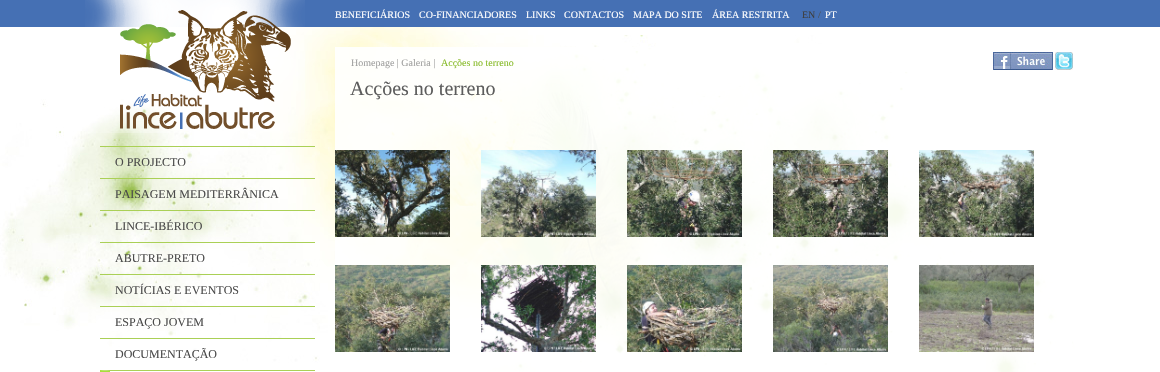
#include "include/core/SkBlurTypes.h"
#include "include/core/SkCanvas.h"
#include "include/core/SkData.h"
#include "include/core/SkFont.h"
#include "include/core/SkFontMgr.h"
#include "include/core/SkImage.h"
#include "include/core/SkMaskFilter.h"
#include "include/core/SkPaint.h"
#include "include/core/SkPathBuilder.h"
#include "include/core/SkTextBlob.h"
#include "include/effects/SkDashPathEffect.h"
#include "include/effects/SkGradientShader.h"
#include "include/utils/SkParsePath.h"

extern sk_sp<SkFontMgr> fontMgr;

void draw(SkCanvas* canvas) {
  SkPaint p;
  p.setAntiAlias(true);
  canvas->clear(SK_ColorWHITE);
  canvas->drawImageRect(SkImages::DeferredFromEncodedData(SkData::MakeFromFileName("images/1.png")), SkRect::MakeLTRB(0, 27, 1075, 372), SkSamplingOptions());
  p.setColor(SkColorSetRGB(69, 112, 180));
  canvas->drawRect(SkRect::MakeLTRB(0, 0, 1160, 27), p);
  p.setColor(SkColorSetARGB(230, 255, 255, 255));
  canvas->drawRect(SkRect::MakeLTRB(335, 47, 1075, 372), p);
  canvas->drawImageRect(SkImages::DeferredFromEncodedData(SkData::MakeFromFileName("images/2.png")), SkRect::MakeLTRB(993, 52, 1053, 70), SkSamplingOptions());
  canvas->drawImageRect(SkImages::DeferredFromEncodedData(SkData::MakeFromFileName("images/3.png")), SkRect::MakeLTRB(1055, 52, 1073, 70), SkSamplingOptions());
  canvas->drawImageRect(SkImages::DeferredFromEncodedData(SkData::MakeFromFileName("images/4.png")), SkRect::MakeLTRB(335, 150, 450, 237), SkSamplingOptions());
  canvas->drawImageRect(SkImages::DeferredFromEncodedData(SkData::MakeFromFileName("images/5.png")), SkRect::MakeLTRB(481, 150, 596, 237), SkSamplingOptions());
  canvas->drawImageRect(SkImages::DeferredFromEncodedData(SkData::MakeFromFileName("images/6.png")), SkRect::MakeLTRB(627, 150, 742, 237), SkSamplingOptions());
  canvas->drawImageRect(SkImages::DeferredFromEncodedData(SkData::MakeFromFileName("images/7.png")), SkRect::MakeLTRB(773, 150, 888, 237), SkSamplingOptions());
  canvas->drawImageRect(SkImages::DeferredFromEncodedData(SkData::MakeFromFileName("images/8.png")), SkRect::MakeLTRB(919, 150, 1034, 237), SkSamplingOptions());
  canvas->drawImageRect(SkImages::DeferredFromEncodedData(SkData::MakeFromFileName("images/9.png")), SkRect::MakeLTRB(335, 265, 450, 352), SkSamplingOptions());
  canvas->drawImageRect(SkImages::DeferredFromEncodedData(SkData::MakeFromFileName("images/10.png")), SkRect::MakeLTRB(481, 265, 596, 352), SkSamplingOptions());
  canvas->drawImageRect(SkImages::DeferredFromEncodedData(SkData::MakeFromFileName("images/11.png")), SkRect::MakeLTRB(627, 265, 742, 352), SkSamplingOptions());
  canvas->drawImageRect(SkImages::DeferredFromEncodedData(SkData::MakeFromFileName("images/12.png")), SkRect::MakeLTRB(773, 265, 888, 352), SkSamplingOptions());
  canvas->drawImageRect(SkImages::DeferredFromEncodedData(SkData::MakeFromFileName("images/13.png")), SkRect::MakeLTRB(919, 265, 1034, 352), SkSamplingOptions());
  canvas->drawImageRect(SkImages::DeferredFromEncodedData(SkData::MakeFromFileName("images/14.png")), SkRect::MakeLTRB(85, 0, 305, 133), SkSamplingOptions());
  p.setColor(SkColorSetRGB(170, 208, 86));
  canvas->drawRect(SkRect::MakeLTRB(100, 146, 315, 147), p);
  canvas->drawRect(SkRect::MakeLTRB(100, 178, 315, 179), p);
  canvas->drawRect(SkRect::MakeLTRB(100, 210, 315, 211), p);
  canvas->drawRect(SkRect::MakeLTRB(100, 242, 315, 243), p);
  canvas->drawRect(SkRect::MakeLTRB(100, 274, 315, 275), p);
  canvas->drawRect(SkRect::MakeLTRB(100, 306, 315, 307), p);
  canvas->drawRect(SkRect::MakeLTRB(100, 338, 315, 339), p);
  canvas->drawPath(SkPathBuilder().moveTo(100, 370).lineTo(315, 370).lineTo(315, 371).lineTo(110, 371).close().detach(), p);
  p.setColor(SkColorSetRGB(167, 223, 60));
  canvas->drawPath(SkPathBuilder().moveTo(100, 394).lineTo(100, 370).lineTo(110, 371).lineTo(110, 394).close().detach(), p);
  SkFont font1(fontMgr->matchFamilyStyle("Liberation Serif", SkFontStyle::Normal()), 10);
  font1.setSubpixel(true);
  p.setColor(SK_ColorWHITE);
  canvas->drawString("BENEFICIÁRIOS", 335, 18, font1, p);
  canvas->drawString("CO-FINANCIADORES", 419, 18, font1, p);
  canvas->drawString("LINKS", 526, 18, font1, p);
  canvas->drawString("CONTACTOS", 564, 18, font1, p);
  canvas->drawString("MAPA DO SITE", 633, 18, font1, p);
  canvas->drawString("ÁREA RESTRITA", 712, 18, font1, p);
  p.setColor(SkColorSetRGB(62, 62, 61));
  canvas->drawString("EN", 802, 18, font1, p);
  p.setColor(SkColorSetRGB(75, 75, 75));
  canvas->drawString("/", 818, 18, font1, p);
  p.setColor(SK_ColorWHITE);
  canvas->drawString("PT", 825, 18, font1, p);
  p.setColor(SkColorSetRGB(159, 159, 158));
  canvas->drawString("Homepage | Galeria |", 351, 66, font1, p);
  p.setColor(SkColorSetRGB(134, 186, 38));
  canvas->drawString("Acções no terreno", 441, 66, font1, p);
  SkFont font2(fontMgr->matchFamilyStyle("Liberation Serif", SkFontStyle::Normal()), 20);
  font2.setSubpixel(true);
  p.setColor(SkColorSetRGB(93, 93, 93));
  canvas->drawString("Acções no terreno", 350, 95, font2, p);
  SkFont font3(fontMgr->matchFamilyStyle("Liberation Serif", SkFontStyle::Normal()), 12);
  font3.setSubpixel(true);
  p.setColor(SkColorSetRGB(75, 75, 75));
  canvas->drawString("O PROJECTO", 115, 166, font3, p);
  canvas->drawString("PAISAGEM MEDITERRÂNICA", 115, 198, font3, p);
  canvas->drawString("LINCE-IBÉRICO", 115, 230, font3, p);
  canvas->drawString("ABUTRE-PRETO", 115, 262, font3, p);
  canvas->drawString("NOTÍCIAS E EVENTOS", 115, 294, font3, p);
  canvas->drawString("ESPAÇO JOVEM", 115, 326, font3, p);
  canvas->drawString("DOCUMENTAÇÃO", 115, 358, font3, p);
}
